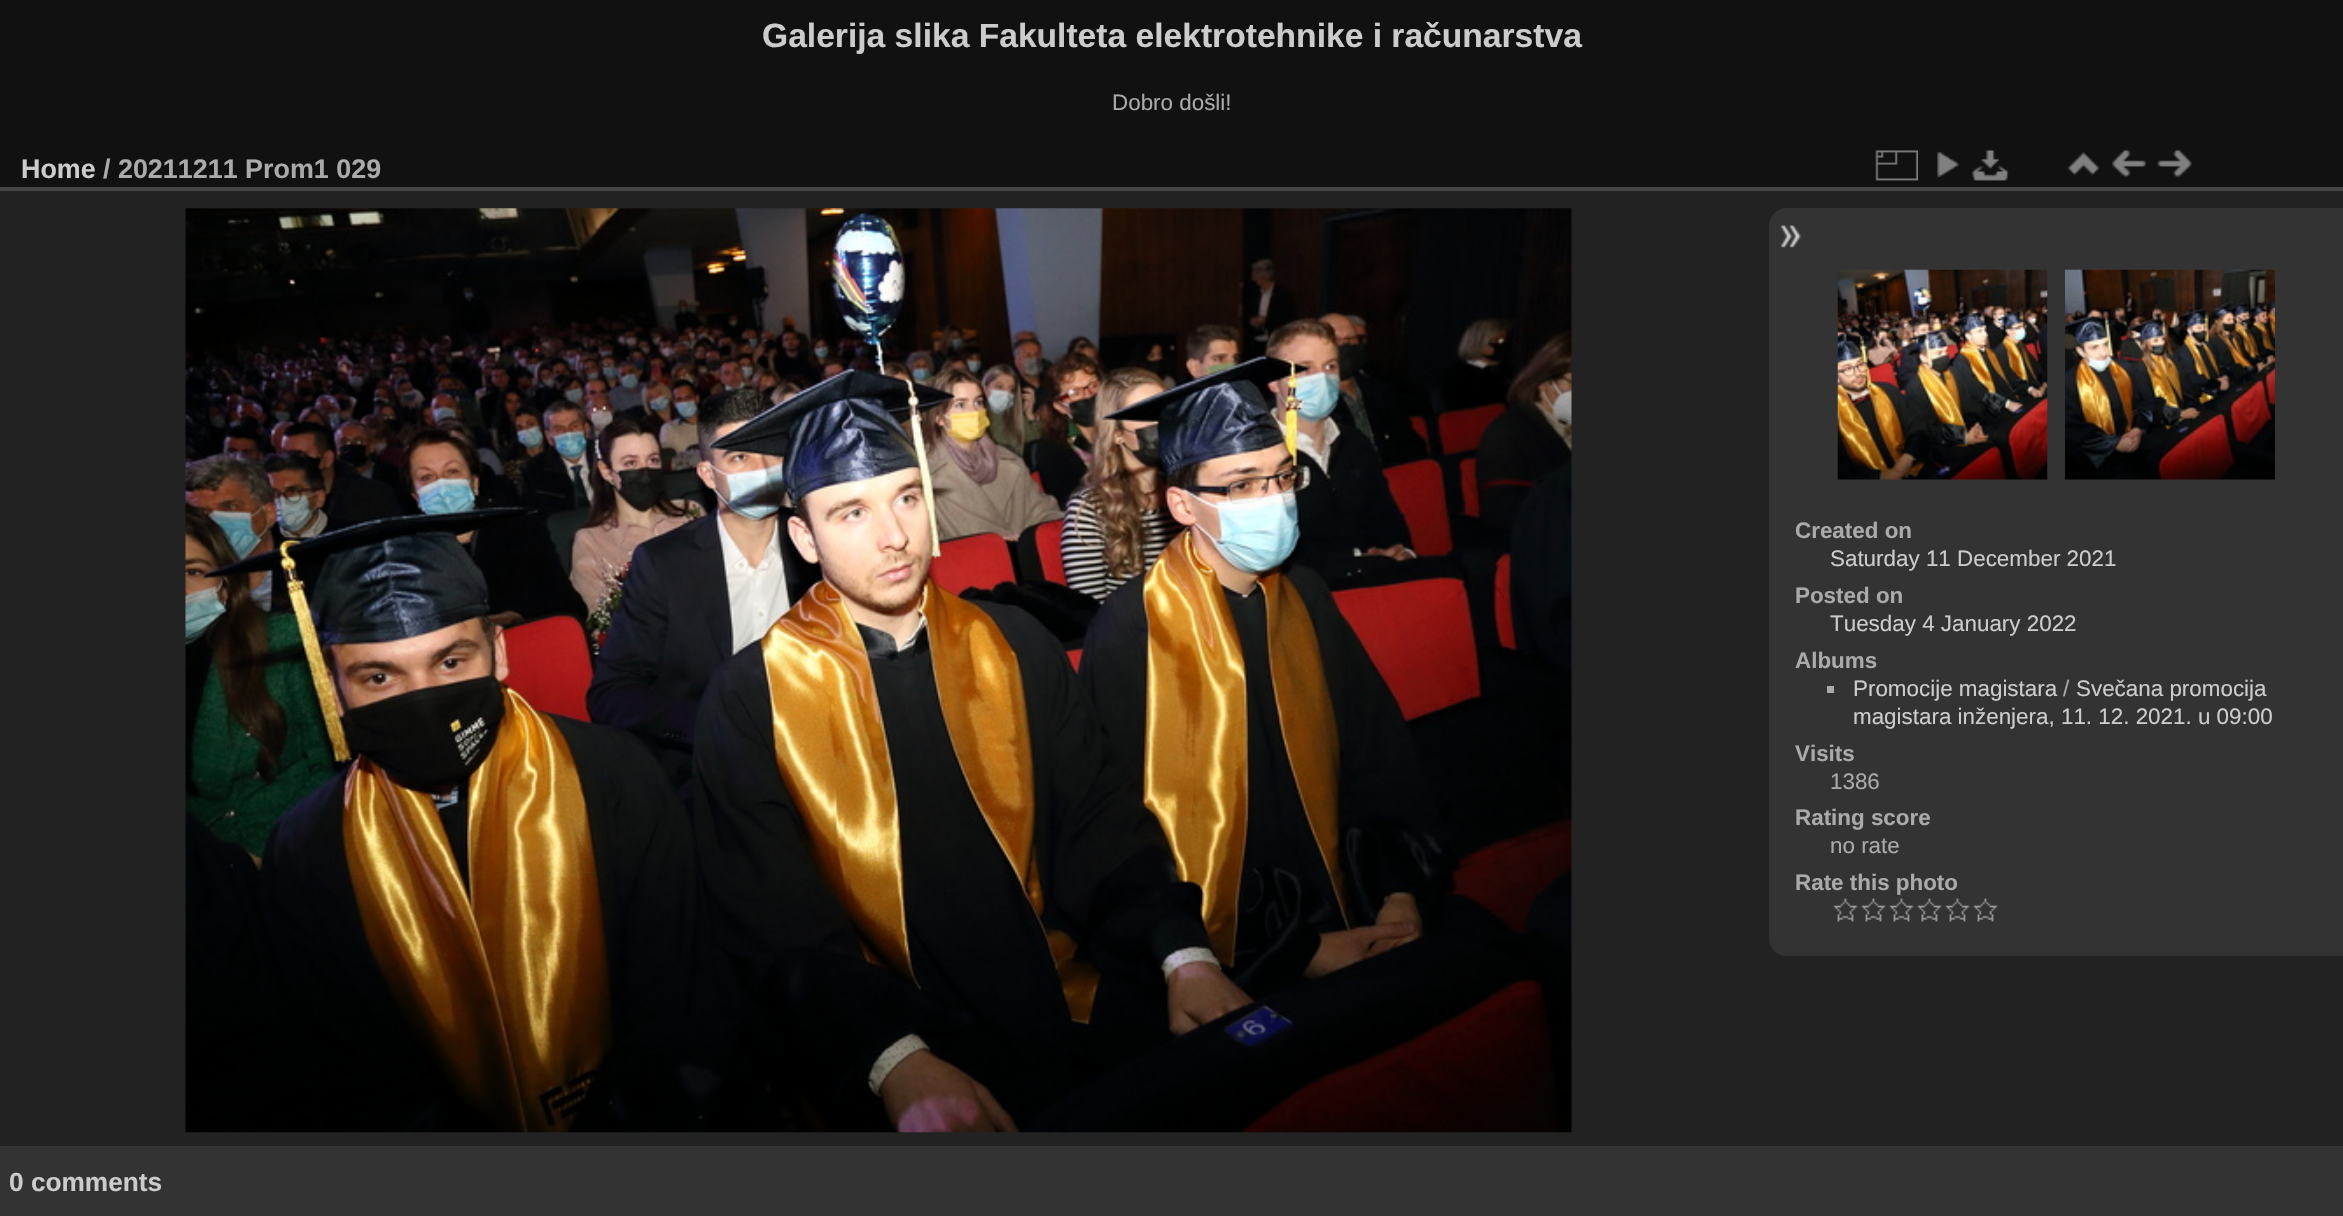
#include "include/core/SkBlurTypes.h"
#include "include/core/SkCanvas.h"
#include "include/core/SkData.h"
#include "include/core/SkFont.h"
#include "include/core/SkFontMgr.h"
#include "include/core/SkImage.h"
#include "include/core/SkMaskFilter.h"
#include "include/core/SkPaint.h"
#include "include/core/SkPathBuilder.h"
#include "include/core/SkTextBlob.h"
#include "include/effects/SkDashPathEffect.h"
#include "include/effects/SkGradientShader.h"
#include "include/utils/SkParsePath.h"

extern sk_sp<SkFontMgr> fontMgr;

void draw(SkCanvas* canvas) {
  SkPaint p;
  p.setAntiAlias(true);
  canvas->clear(SkColorSetRGB(17, 17, 17));
  p.setColor(SkColorSetRGB(34, 34, 34));
  canvas->drawRect(SkRect::MakeLTRB(0, 191, 2343, 1146), p);
  p.setColor(SkColorSetRGB(68, 68, 68));
  canvas->drawRect(SkRect::MakeLTRB(0, 187, 2343, 191), p);
  canvas->drawImageRect(SkImages::DeferredFromEncodedData(SkData::MakeFromFileName("images/1.png")), SkRect::MakeLTRB(1875, 150, 1918, 181), SkSamplingOptions());
  canvas->drawImageRect(SkImages::DeferredFromEncodedData(SkData::MakeFromFileName("images/2.png")), SkRect::MakeLTRB(1937, 151, 1959, 178), SkSamplingOptions());
  canvas->drawImageRect(SkImages::DeferredFromEncodedData(SkData::MakeFromFileName("images/3.png")), SkRect::MakeLTRB(1972, 150, 2009, 181), SkSamplingOptions());
  canvas->drawImageRect(SkImages::DeferredFromEncodedData(SkData::MakeFromFileName("images/4.png")), SkRect::MakeLTRB(2068, 152, 2099, 176), SkSamplingOptions());
  canvas->drawImageRect(SkImages::DeferredFromEncodedData(SkData::MakeFromFileName("images/5.png")), SkRect::MakeLTRB(2112, 150, 2146, 178), SkSamplingOptions());
  canvas->drawImageRect(SkImages::DeferredFromEncodedData(SkData::MakeFromFileName("images/6.png")), SkRect::MakeLTRB(2157, 150, 2192, 178), SkSamplingOptions());
  canvas->drawImageRect(SkImages::DeferredFromEncodedData(SkData::MakeFromFileName("images/7.png")), SkRect::MakeLTRB(185, 208, 1572, 1133), SkSamplingOptions());
  p.setColor(SkColorSetRGB(51, 51, 51));
  canvas->drawPath(SkPathBuilder().moveTo(1787, 208).lineTo(2343, 208).lineTo(2343, 956).lineTo(1787, 956).cubicTo(1777, 956, 1769, 948, 1769, 938).lineTo(1769, 226).cubicTo(1769, 216, 1777, 208, 1787, 208).close().detach(), p);
  canvas->drawImageRect(SkImages::DeferredFromEncodedData(SkData::MakeFromFileName("images/8.png")), SkRect::MakeLTRB(1780, 225, 1802, 248), SkSamplingOptions());
  canvas->drawImageRect(SkImages::DeferredFromEncodedData(SkData::MakeFromFileName("images/9.png")), SkRect::MakeLTRB(1837, 269, 2048, 480), SkSamplingOptions());
  canvas->drawImageRect(SkImages::DeferredFromEncodedData(SkData::MakeFromFileName("images/10.png")), SkRect::MakeLTRB(2065, 269, 2275, 480), SkSamplingOptions());
  p.setColor(SkColorSetRGB(170, 170, 170));
  canvas->drawRect(SkRect::MakeLTRB(1827, 686, 1834, 693), p);
  canvas->drawImageRect(SkImages::DeferredFromEncodedData(SkData::MakeFromFileName("images/11.png")), SkRect::MakeLTRB(1833, 898, 1858, 922), SkSamplingOptions());
  canvas->drawImageRect(SkImages::DeferredFromEncodedData(SkData::MakeFromFileName("images/12.png")), SkRect::MakeLTRB(1861, 898, 1886, 922), SkSamplingOptions());
  canvas->drawImageRect(SkImages::DeferredFromEncodedData(SkData::MakeFromFileName("images/12.png")), SkRect::MakeLTRB(1889, 898, 1914, 922), SkSamplingOptions());
  canvas->drawImageRect(SkImages::DeferredFromEncodedData(SkData::MakeFromFileName("images/13.png")), SkRect::MakeLTRB(1917, 898, 1942, 922), SkSamplingOptions());
  canvas->drawImageRect(SkImages::DeferredFromEncodedData(SkData::MakeFromFileName("images/12.png")), SkRect::MakeLTRB(1945, 898, 1970, 922), SkSamplingOptions());
  canvas->drawImageRect(SkImages::DeferredFromEncodedData(SkData::MakeFromFileName("images/12.png")), SkRect::MakeLTRB(1973, 898, 1998, 922), SkSamplingOptions());
  p.setColor(SkColorSetRGB(51, 51, 51));
  canvas->drawRect(SkRect::MakeLTRB(0, 1146, 2343, 1216), p);
  SkFont font1(fontMgr->matchFamilyStyle("Liberation Sans", SkFontStyle::Bold()), 33.6f);
  font1.setSubpixel(true);
  p.setColor(SkColorSetRGB(204, 204, 204));
  canvas->drawString("Galerija slika Fakulteta elektrotehnike i računarstva", 762, 47, font1, p);
  SkFont font2(fontMgr->matchFamilyStyle("Liberation Sans", SkFontStyle::Normal()), 22.4f);
  font2.setSubpixel(true);
  p.setColor(SkColorSetRGB(170, 170, 170));
  canvas->drawString("Dobro došli!", 1112, 110, font2, p);
  SkFont font3(fontMgr->matchFamilyStyle("Liberation Sans", SkFontStyle::Bold()), 26.9f);
  font3.setSubpixel(true);
  p.setColor(SkColorSetRGB(204, 204, 204));
  canvas->drawString("Home", 21, 178, font3, p);
  p.setColor(SkColorSetRGB(170, 170, 170));
  canvas->drawString("/ 20211211 Prom1 029", 103, 178, font3, p);
  SkFont font4(fontMgr->matchFamilyStyle("Liberation Sans", SkFontStyle::Bold()), 22.4f);
  font4.setSubpixel(true);
  canvas->drawString("Created on", 1795, 538, font4, p);
  p.setColor(SkColorSetRGB(204, 204, 204));
  canvas->drawString("Saturday 11 December 2021", 1830, 566, font2, p);
  p.setColor(SkColorSetRGB(170, 170, 170));
  canvas->drawString("Posted on", 1795, 603, font4, p);
  p.setColor(SkColorSetRGB(204, 204, 204));
  canvas->drawString("Tuesday 4 January 2022", 1830, 631, font2, p);
  p.setColor(SkColorSetRGB(170, 170, 170));
  canvas->drawString("Albums", 1795, 668, font4, p);
  p.setColor(SkColorSetRGB(204, 204, 204));
  canvas->drawString("Promocije magistara", 1853, 696, font2, p);
  p.setColor(SkColorSetRGB(170, 170, 170));
  canvas->drawString("/", 2063, 696, font2, p);
  p.setColor(SkColorSetRGB(204, 204, 204));
  canvas->drawString("Svečana promocija", 2076, 696, font2, p);
  canvas->drawString("magistara inženjera, 11. 12. 2021. u 09:00", 1853, 724, font2, p);
  p.setColor(SkColorSetRGB(170, 170, 170));
  canvas->drawString("Visits", 1795, 761, font4, p);
  canvas->drawString("1386", 1830, 789, font2, p);
  canvas->drawString("Rating score", 1795, 825, font4, p);
  canvas->drawString("no rate", 1830, 853, font2, p);
  canvas->drawString("Rate this photo", 1795, 890, font4, p);
  SkFont font5(fontMgr->matchFamilyStyle("Liberation Sans", SkFontStyle::Bold()), 26.25f);
  font5.setSubpixel(true);
  p.setColor(SkColorSetRGB(204, 204, 204));
  canvas->drawString("0 comments", 9, 1191, font5, p);
}
